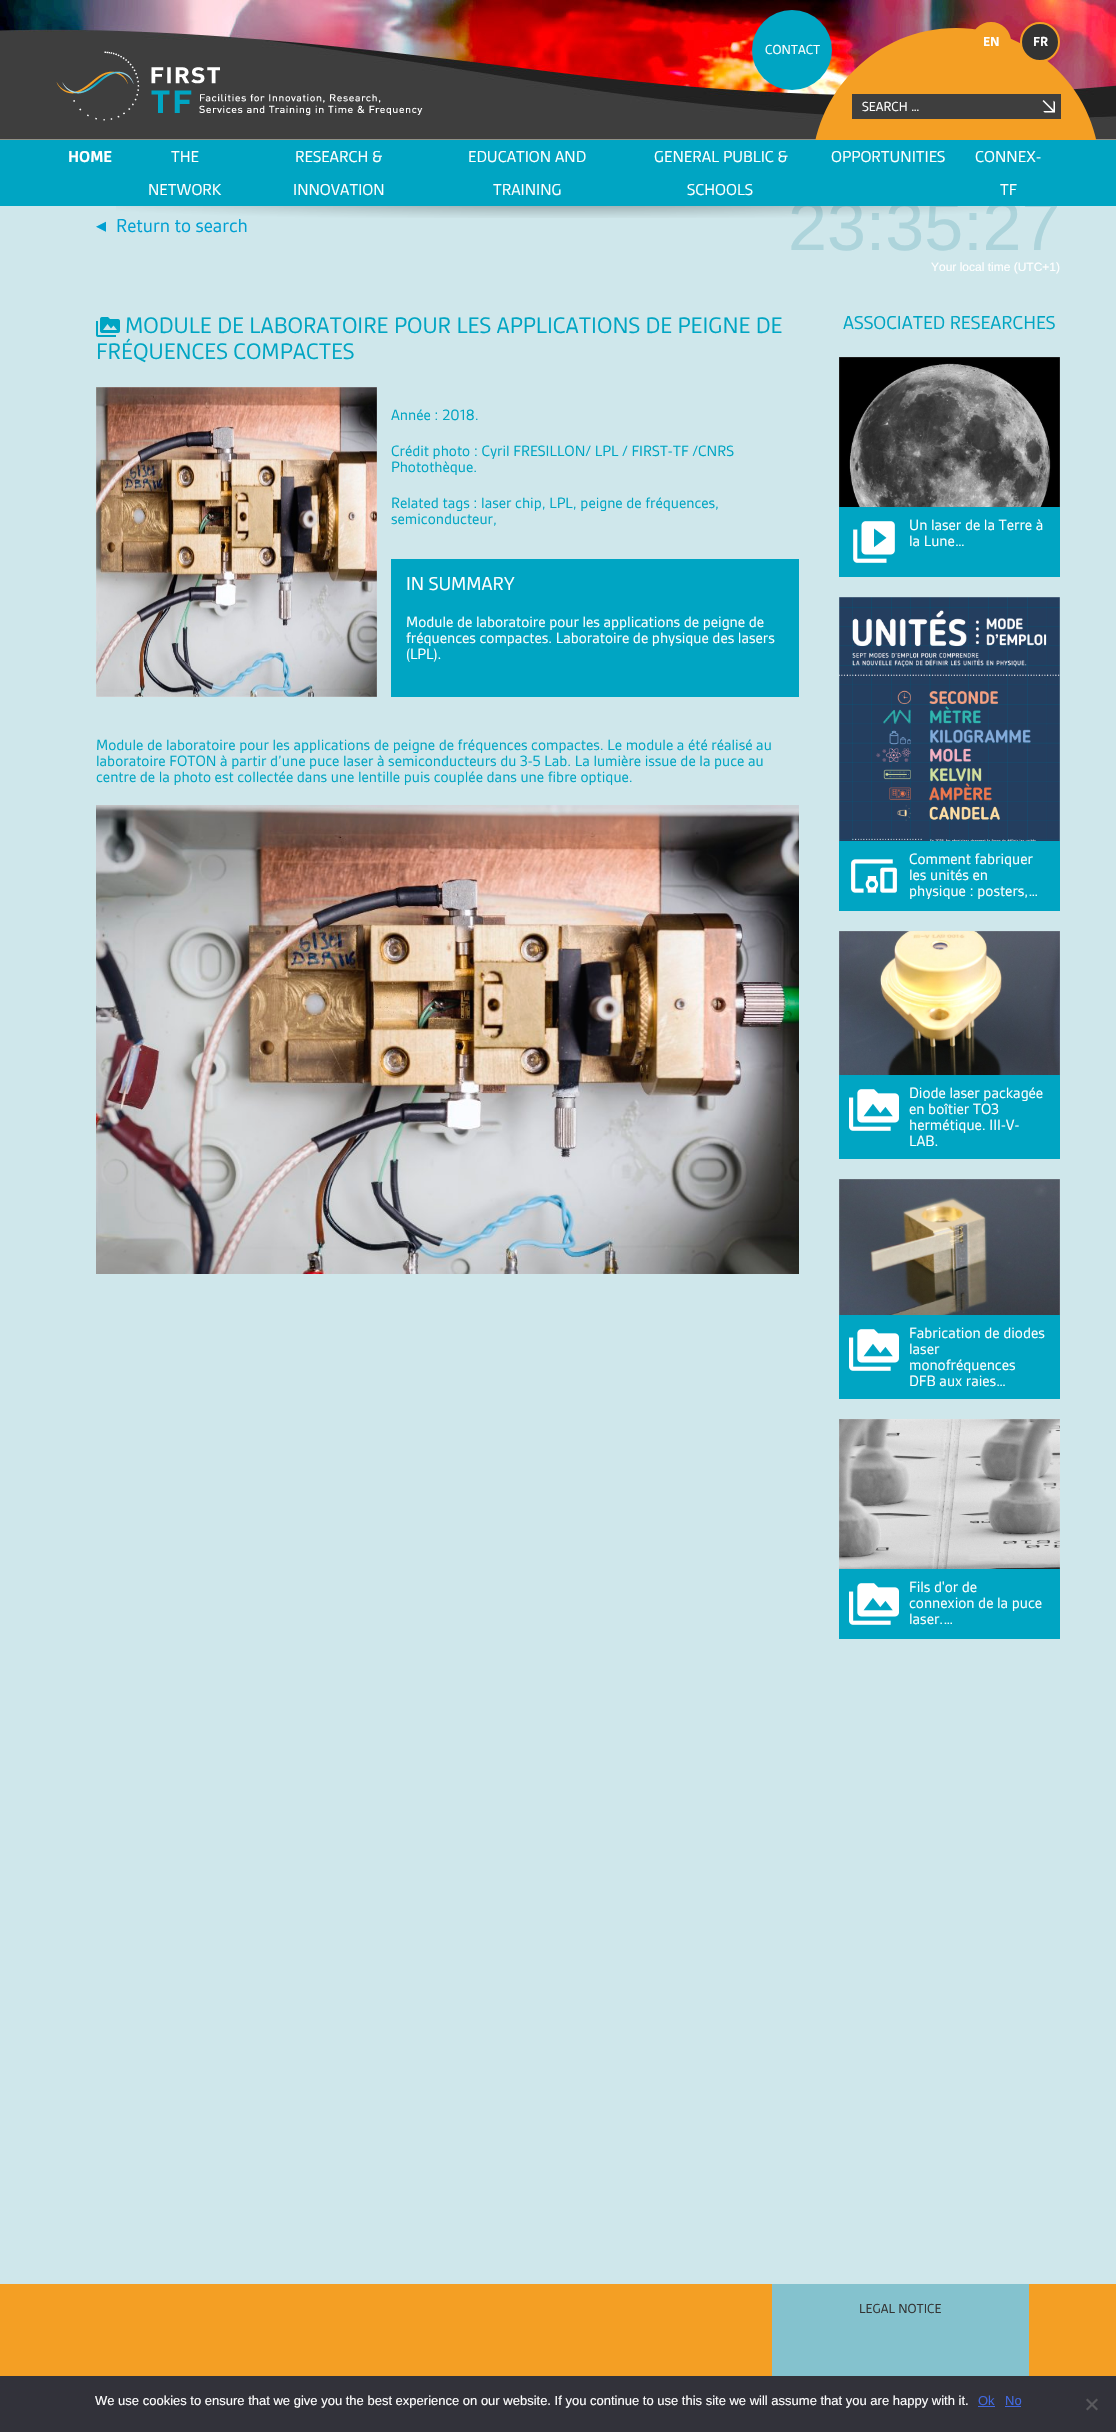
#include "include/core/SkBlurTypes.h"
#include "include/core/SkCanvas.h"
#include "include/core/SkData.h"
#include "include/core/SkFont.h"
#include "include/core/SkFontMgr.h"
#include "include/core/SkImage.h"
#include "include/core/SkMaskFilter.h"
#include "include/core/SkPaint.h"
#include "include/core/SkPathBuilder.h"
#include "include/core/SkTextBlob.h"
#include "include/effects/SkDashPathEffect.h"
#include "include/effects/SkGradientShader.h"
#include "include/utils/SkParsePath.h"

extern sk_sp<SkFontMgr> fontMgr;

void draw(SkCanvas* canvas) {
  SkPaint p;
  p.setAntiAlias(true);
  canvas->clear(SkColorSetRGB(207, 231, 235));
  canvas->drawImageRect(SkImages::DeferredFromEncodedData(SkData::MakeFromFileName("images/1.png")), SkRect::MakeLTRB(0, 0, 1116, 140), SkSamplingOptions());
  p.setColor(SkColorSetRGB(244, 159, 36));
  canvas->drawPath(SkPathBuilder().moveTo(956, 28).cubicTo(1035.5f, 28, 1100, 92.5f, 1100, 172).lineTo(1100, 140).lineTo(812, 140).lineTo(812, 172).cubicTo(812, 92.5f, 876.5f, 28, 956, 28).close().detach(), p);
  canvas->drawCircle(991, 42, 19, p);
  p.setStyle(SkPaint::kStroke_Style);
  p.setStrokeWidth(2);
  canvas->drawCircle(991, 42, 19, p);
  p.setStyle(SkPaint::kFill_Style);
  p.setColor(SkColorSetRGB(51, 51, 51));
  canvas->drawCircle(1040, 42, 19, p);
  p.setStyle(SkPaint::kStroke_Style);
  p.setColor(SkColorSetRGB(244, 159, 36));
  canvas->drawCircle(1040, 42, 19, p);
  p.setStyle(SkPaint::kFill_Style);
  p.setColor(SkColorSetRGB(0, 165, 195));
  canvas->drawCircle(792, 50, 40, p);
  canvas->drawImageRect(SkImages::DeferredFromEncodedData(SkData::MakeFromFileName("images/2.png")), SkRect::MakeLTRB(56, 51, 423, 121), SkSamplingOptions());
  p.setColor(SkColorSetRGB(62, 62, 62));
  canvas->drawRect(SkRect::MakeLTRB(852, 94, 1061, 119), p);
  canvas->drawImageRect(SkImages::DeferredFromEncodedData(SkData::MakeFromFileName("images/3.png")), SkRect::MakeLTRB(1042, 100, 1055, 113), SkSamplingOptions());
  canvas->drawImageRect(SkImages::DeferredFromEncodedData(SkData::MakeFromFileName("images/5.png")), SkRect::MakeLTRB(96, 317, 120, 337), SkSamplingOptions());
  canvas->drawImageRect(SkImages::DeferredFromEncodedData(SkData::MakeFromFileName("images/6.png")), SkRect::MakeLTRB(96, 387, 377, 697), SkSamplingOptions());
  p.setColor(SkColorSetRGB(0, 165, 195));
  canvas->drawRect(SkRect::MakeLTRB(391, 559, 799, 697), p);
  canvas->drawImageRect(SkImages::DeferredFromEncodedData(SkData::MakeFromFileName("images/7.png")), SkRect::MakeLTRB(96, 805, 799, 1274), SkSamplingOptions());
  canvas->drawImageRect(SkImages::DeferredFromEncodedData(SkData::MakeFromFileName("images/8.png")), SkRect::MakeLTRB(839, 357, 1060, 507), SkSamplingOptions());
  canvas->drawRect(SkRect::MakeLTRB(839, 507, 1060, 577), p);
  canvas->drawImageRect(SkImages::DeferredFromEncodedData(SkData::MakeFromFileName("images/9.png")), SkRect::MakeLTRB(853, 521, 895, 563), SkSamplingOptions());
  canvas->drawImageRect(SkImages::DeferredFromEncodedData(SkData::MakeFromFileName("images/10.png")), SkRect::MakeLTRB(839, 597, 1060, 841), SkSamplingOptions());
  canvas->drawRect(SkRect::MakeLTRB(839, 841, 1060, 911), p);
  canvas->drawImageRect(SkImages::DeferredFromEncodedData(SkData::MakeFromFileName("images/11.png")), SkRect::MakeLTRB(851, 859, 897, 893), SkSamplingOptions());
  canvas->drawImageRect(SkImages::DeferredFromEncodedData(SkData::MakeFromFileName("images/12.png")), SkRect::MakeLTRB(839, 931, 1060, 1075), SkSamplingOptions());
  canvas->drawRect(SkRect::MakeLTRB(839, 1075, 1060, 1159), p);
  canvas->drawImageRect(SkImages::DeferredFromEncodedData(SkData::MakeFromFileName("images/13.png")), SkRect::MakeLTRB(849, 1089, 899, 1131), SkSamplingOptions());
  canvas->drawImageRect(SkImages::DeferredFromEncodedData(SkData::MakeFromFileName("images/14.png")), SkRect::MakeLTRB(839, 1179, 1060, 1315), SkSamplingOptions());
  canvas->drawRect(SkRect::MakeLTRB(839, 1315, 1060, 1399), p);
  canvas->drawImageRect(SkImages::DeferredFromEncodedData(SkData::MakeFromFileName("images/13.png")), SkRect::MakeLTRB(849, 1329, 899, 1371), SkSamplingOptions());
  canvas->drawImageRect(SkImages::DeferredFromEncodedData(SkData::MakeFromFileName("images/15.png")), SkRect::MakeLTRB(839, 1419, 1060, 1569), SkSamplingOptions());
  canvas->drawRect(SkRect::MakeLTRB(839, 1569, 1060, 1639), p);
  canvas->drawImageRect(SkImages::DeferredFromEncodedData(SkData::MakeFromFileName("images/13.png")), SkRect::MakeLTRB(849, 1583, 899, 1625), SkSamplingOptions());
  p.setColor(SkColorSetRGB(50, 50, 58));
  canvas->drawRect(SkRect::MakeLTRB(0, 2376, 1116, 2432), p);
  p.setColor(SkColorSetRGB(65, 105, 225));
  canvas->drawRect(SkRect::MakeLTRB(978, 2406, 995, 2407), p);
  canvas->drawRect(SkRect::MakeLTRB(1005, 2406, 1021, 2407), p);
  p.setColor(SkColorSetRGB(89, 89, 93));
  canvas->drawPath(SkPathBuilder().moveTo(1096.5f, 2398.5f).lineTo(1098, 2400).lineTo(1087.5f, 2410.5f).lineTo(1086, 2409).close().detach(), p);
  canvas->drawPath(SkPathBuilder().moveTo(1086, 2400).lineTo(1087.5f, 2398.5f).lineTo(1098, 2409).lineTo(1096.5f, 2410.5f).close().detach(), p);
  p.setColor(SkColorSetRGB(244, 159, 36));
  canvas->drawRect(SkRect::MakeLTRB(0, 2284, 1116, 2376), p);
  p.setColor(SkColorSetRGB(132, 194, 206));
  canvas->drawRect(SkRect::MakeLTRB(772, 2284, 1029, 2376), p);
  SkFont font1(fontMgr->matchFamilyStyle("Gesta", SkFontStyle::Bold()), 14);
  font1.setSubpixel(true);
  p.setColor(SK_ColorWHITE);
  canvas->drawString("EN", 983, 46, font1, p);
  canvas->drawString("FR", 1033, 46, font1, p);
  SkFont font2(fontMgr->matchFamilyStyle("Gesta", SkFontStyle::Normal()), 14);
  font2.setSubpixel(true);
  canvas->drawString("CONTACT", 765, 54, font2, p);
  canvas->drawString("SEARCH …", 862, 111, font2, p);
  SkFont font3(fontMgr->matchFamilyStyle("DejaVu Sans", SkFontStyle::Normal()), 20);
  font3.setSubpixel(true);
  p.setColor(SkColorSetRGB(0, 160, 210));
  canvas->drawString("◂", 96, 232, font3, p);
  SkFont font4(fontMgr->matchFamilyStyle("Gesta", SkFontStyle::Normal()), 20);
  font4.setSubpixel(true);
  canvas->drawString("Return to search", 116, 232, font4, p);
  SkFont font5(fontMgr->matchFamilyStyle("Liberation Sans", SkFontStyle::Normal()), 70);
  font5.setSubpixel(true);
  p.setColor(SkColorSetRGB(173, 212, 219));
  canvas->drawString("23:35:27", 788, 250, font5, p);
  p.setColor(SkColorSetRGB(0, 165, 195));
  canvas->drawRect(SkRect::MakeLTRB(0, 140, 1116, 206), p);
  SkFont font6(fontMgr->matchFamilyStyle("Gesta", SkFontStyle::Normal()), 17);
  font6.setSubpixel(true);
  p.setColor(SK_ColorWHITE);
  canvas->drawString("TF", 1000, 195, font6, p);
  canvas->drawString("CONNEX-", 975, 162, font6, p);
  canvas->drawString("OPPORTUNITIES", 831, 162, font6, p);
  canvas->drawString("SCHOOLS", 687, 195, font6, p);
  canvas->drawString("GENERAL PUBLIC &", 654, 162, font6, p);
  canvas->drawString("TRAINING", 493, 195, font6, p);
  canvas->drawString("EDUCATION AND", 468, 162, font6, p);
  canvas->drawString("INNOVATION", 293, 195, font6, p);
  canvas->drawString("RESEARCH &", 295, 162, font6, p);
  canvas->drawString("NETWORK", 148, 195, font6, p);
  canvas->drawString("THE", 171, 162, font6, p);
  SkFont font7(fontMgr->matchFamilyStyle("Gesta", SkFontStyle::Bold()), 17);
  font7.setSubpixel(true);
  canvas->drawString("HOME", 68, 162, font7, p);
  canvas->drawImageRect(SkImages::DeferredFromEncodedData(SkData::MakeFromFileName("images/4.png")), SkRect::MakeLTRB(116, 206, 1020, 218), SkSamplingOptions());
  SkFont font8(fontMgr->matchFamilyStyle("Liberation Sans", SkFontStyle::Normal()), 12);
  font8.setSubpixel(true);
  canvas->drawString("Your local time (UTC+1)", 931, 271, font8, p);
  SkFont font9(fontMgr->matchFamilyStyle("Gesta", SkFontStyle::Normal()), 24);
  font9.setSubpixel(true);
  p.setColor(SkColorSetRGB(0, 165, 195));
  canvas->drawString("MODULE DE LABORATOIRE POUR LES APPLICATIONS DE PEIGNE DE", 125, 333, font9, p);
  canvas->drawString("FRÉQUENCES COMPACTES", 96, 359, font9, p);
  SkFont font10(fontMgr->matchFamilyStyle("Gesta", SkFontStyle::Normal()), 16);
  font10.setSubpixel(true);
  canvas->drawString("Année : 2018.", 391, 420, font10, p);
  canvas->drawString("Crédit photo : Cyril FRESILLON/ LPL / FIRST-TF /CNRS", 391, 456, font10, p);
  canvas->drawString("Photothèque.", 391, 472, font10, p);
  canvas->drawString("Related tags : laser chip, LPL, peigne de fréquences,", 391, 508, font10, p);
  canvas->drawString("semiconducteur,", 391, 524, font10, p);
  p.setColor(SK_ColorWHITE);
  canvas->drawString("IN SUMMARY", 406, 590, font4, p);
  canvas->drawString("Module de laboratoire pour les applications de peigne de", 406, 627, font10, p);
  canvas->drawString("fréquences compactes. Laboratoire de physique des lasers", 406, 643, font10, p);
  canvas->drawString("(LPL).", 406, 659, font10, p);
  p.setColor(SkColorSetRGB(0, 165, 195));
  canvas->drawString("Module de laboratoire pour les applications de peigne de fréquences compactes. Le module a été réalisé au", 96, 750, font10, p);
  canvas->drawString("laboratoire FOTON à partir d’une puce laser à semiconducteurs du 3-5 Lab. La lumière issue de la puce au", 96, 766, font10, p);
  canvas->drawString("centre de la photo est collectée dans une lentille puis couplée dans une fibre optique.", 96, 782, font10, p);
  canvas->drawString("ASSOCIATED RESEARCHES", 843, 329, font4, p);
  p.setColor(SK_ColorWHITE);
  canvas->drawString("Un laser de la Terre à", 909, 530, font10, p);
  canvas->drawString("la Lune…", 909, 546, font10, p);
  canvas->drawString("Comment fabriquer", 909, 864, font10, p);
  canvas->drawString("les unités en", 909, 880, font10, p);
  canvas->drawString("physique : posters,…", 909, 896, font10, p);
  canvas->drawString("Diode laser packagée", 909, 1098, font10, p);
  canvas->drawString("en boîtier TO3", 909, 1114, font10, p);
  canvas->drawString("hermétique. III-V-", 909, 1130, font10, p);
  canvas->drawString("LAB.", 909, 1146, font10, p);
  canvas->drawString("Fabrication de diodes", 909, 1338, font10, p);
  canvas->drawString("laser", 909, 1354, font10, p);
  canvas->drawString("monofréquences", 909, 1370, font10, p);
  canvas->drawString("DFB aux raies…", 909, 1386, font10, p);
  canvas->drawString("Fils d'or de", 909, 1592, font10, p);
  canvas->drawString("connexion de la puce", 909, 1608, font10, p);
  canvas->drawString("laser.…", 909, 1624, font10, p);
  SkFont font11(fontMgr->matchFamilyStyle("Liberation Sans", SkFontStyle::Normal()), 13);
  font11.setSubpixel(true);
  canvas->drawString("We use cookies to ensure that we give you the best experience on our website. If you continue to use this site we will assume that you are happy with it.", 95, 2405, font11, p);
  p.setColor(SkColorSetRGB(65, 105, 225));
  canvas->drawString("Ok", 978, 2405, font11, p);
  canvas->drawString("No", 1005, 2405, font11, p);
  p.setColor(SkColorSetRGB(51, 51, 51));
  canvas->drawString("LEGAL NOTICE", 859, 2313, font2, p);
}
